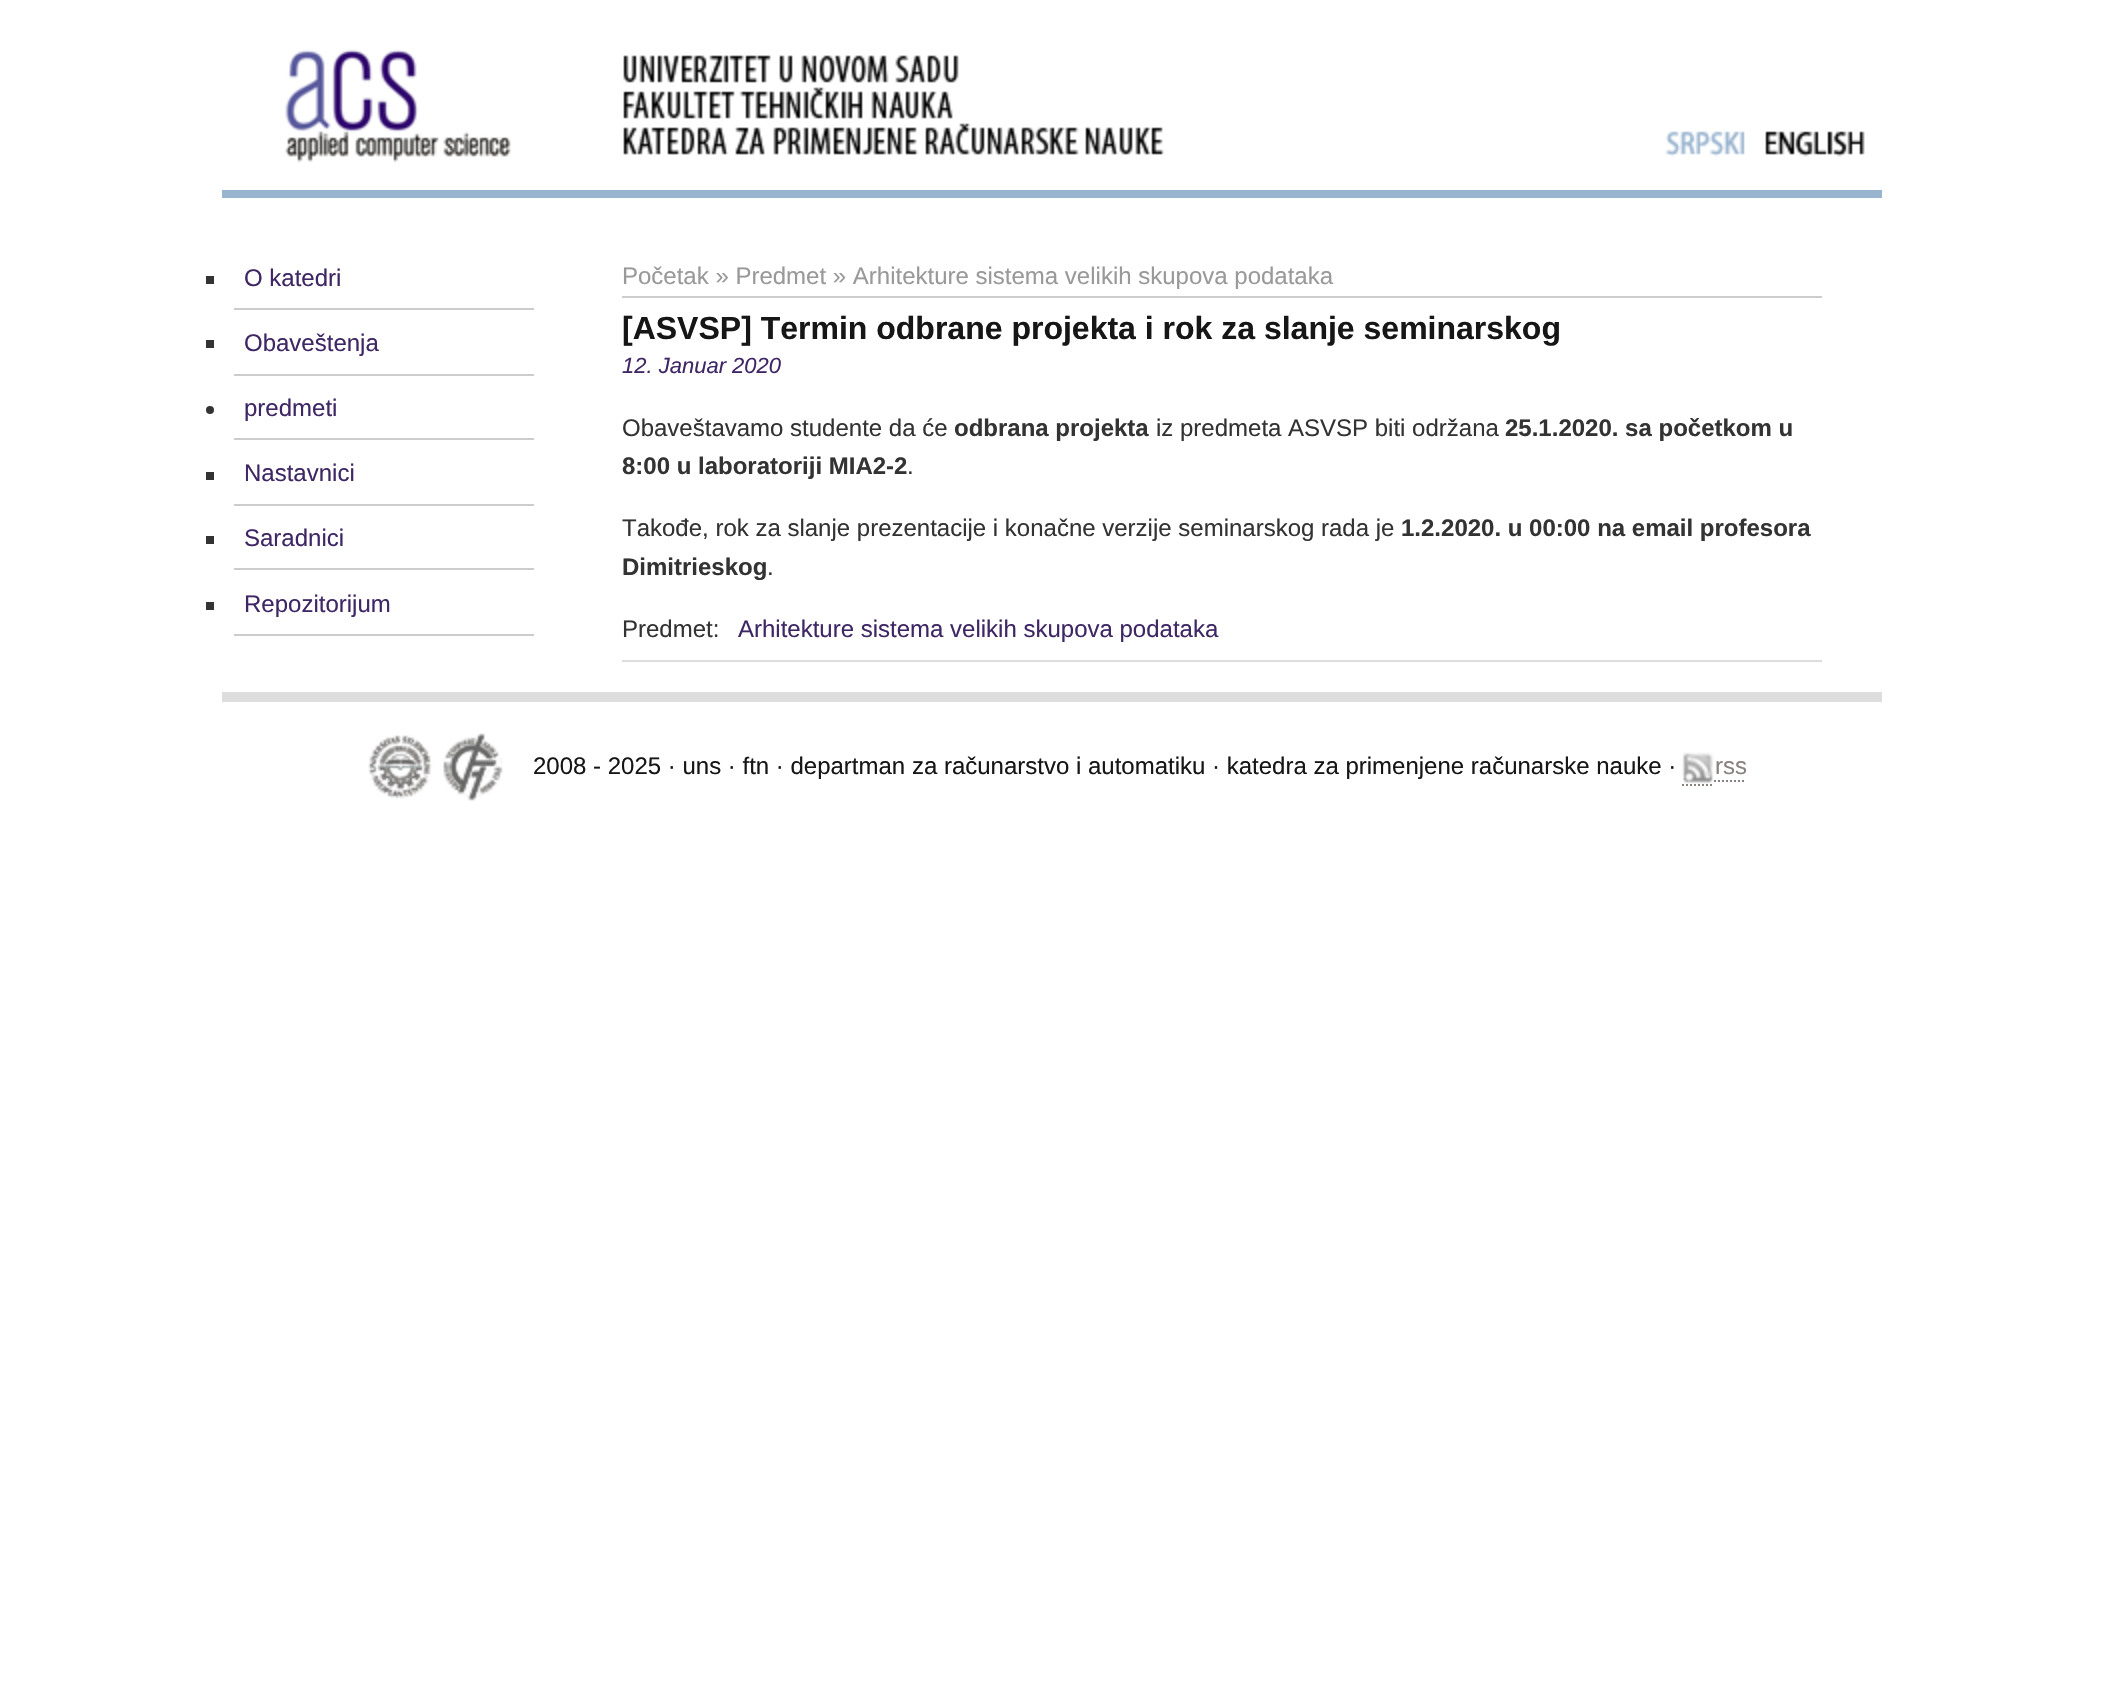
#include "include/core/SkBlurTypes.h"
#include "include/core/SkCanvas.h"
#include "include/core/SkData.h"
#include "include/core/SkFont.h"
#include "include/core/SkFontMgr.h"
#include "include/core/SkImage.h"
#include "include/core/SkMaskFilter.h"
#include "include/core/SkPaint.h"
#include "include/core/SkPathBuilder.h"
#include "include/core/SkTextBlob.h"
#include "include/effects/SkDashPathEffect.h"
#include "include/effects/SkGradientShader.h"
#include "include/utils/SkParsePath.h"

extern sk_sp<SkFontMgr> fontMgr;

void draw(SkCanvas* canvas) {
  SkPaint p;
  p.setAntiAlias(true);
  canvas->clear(SK_ColorWHITE);
  p.setColor(SkColorSetRGB(153, 180, 207));
  canvas->drawRect(SkRect::MakeLTRB(222, 190, 1882, 198), p);
  canvas->drawImageRect(SkImages::DeferredFromEncodedData(SkData::MakeFromFileName("images/1.png")), SkRect::MakeLTRB(285, 49, 1165, 163), SkSamplingOptions());
  canvas->drawImageRect(SkImages::DeferredFromEncodedData(SkData::MakeFromFileName("images/2.png")), SkRect::MakeLTRB(1665, 131, 1745, 157), SkSamplingOptions());
  canvas->drawImageRect(SkImages::DeferredFromEncodedData(SkData::MakeFromFileName("images/3.png")), SkRect::MakeLTRB(1765, 131, 1865, 157), SkSamplingOptions());
  p.setColor(SkColorSetRGB(51, 51, 51));
  canvas->drawRect(SkRect::MakeLTRB(206, 276, 214, 284), p);
  p.setColor(SkColorSetRGB(204, 204, 204));
  canvas->drawRect(SkRect::MakeLTRB(234, 308, 534, 310), p);
  p.setColor(SkColorSetRGB(51, 51, 51));
  canvas->drawRect(SkRect::MakeLTRB(206, 340, 214, 348), p);
  p.setColor(SkColorSetRGB(204, 204, 204));
  canvas->drawRect(SkRect::MakeLTRB(234, 374, 534, 376), p);
  p.setColor(SkColorSetRGB(51, 51, 51));
  canvas->drawCircle(210, 410, 4, p);
  p.setColor(SkColorSetRGB(204, 204, 204));
  canvas->drawRect(SkRect::MakeLTRB(234, 438, 534, 440), p);
  p.setColor(SkColorSetRGB(51, 51, 51));
  canvas->drawRect(SkRect::MakeLTRB(206, 472, 214, 480), p);
  p.setColor(SkColorSetRGB(204, 204, 204));
  canvas->drawRect(SkRect::MakeLTRB(234, 504, 534, 506), p);
  p.setColor(SkColorSetRGB(51, 51, 51));
  canvas->drawRect(SkRect::MakeLTRB(206, 536, 214, 544), p);
  p.setColor(SkColorSetRGB(204, 204, 204));
  canvas->drawRect(SkRect::MakeLTRB(234, 568, 534, 570), p);
  p.setColor(SkColorSetRGB(51, 51, 51));
  canvas->drawRect(SkRect::MakeLTRB(206, 602, 214, 610), p);
  p.setColor(SkColorSetRGB(204, 204, 204));
  canvas->drawRect(SkRect::MakeLTRB(234, 634, 534, 636), p);
  canvas->drawRect(SkRect::MakeLTRB(622, 296, 1822, 298), p);
  p.setColor(SkColorSetRGB(221, 221, 221));
  canvas->drawRect(SkRect::MakeLTRB(622, 660, 1822, 662), p);
  canvas->drawRect(SkRect::MakeLTRB(222, 692, 1882, 702), p);
  canvas->drawImageRect(SkImages::DeferredFromEncodedData(SkData::MakeFromFileName("images/4.png")), SkRect::MakeLTRB(368, 733, 503, 801), SkSamplingOptions());
  p.setStyle(SkPaint::kStroke_Style);
  p.setStrokeWidth(2);
  p.setColor(SkColorSetRGB(137, 129, 127));
  p.setPathEffect(SkDashPathEffect::Make({{2, 2}}, 0));
  canvas->drawPath(SkPathBuilder().moveTo(1682, 785).lineTo(1714, 785).moveTo(1714, 781).lineTo(1746, 781).detach(), p);
  p.setPathEffect(nullptr);
  canvas->drawImageRect(SkImages::DeferredFromEncodedData(SkData::MakeFromFileName("images/5.png")), SkRect::MakeLTRB(1682, 752, 1714, 784), SkSamplingOptions());
  SkFont font1(fontMgr->matchFamilyStyle("Liberation Sans", SkFontStyle::Normal()), 24);
  font1.setSubpixel(true);
  p.setStyle(SkPaint::kFill_Style);
  p.setColor(SkColorSetRGB(63, 39, 101));
  canvas->drawString("O katedri", 244, 286, font1, p);
  canvas->drawString("Obaveštenja", 244, 351, font1, p);
  canvas->drawString("predmeti", 244, 416, font1, p);
  canvas->drawString("Nastavnici", 244, 481, font1, p);
  canvas->drawString("Saradnici", 244, 546, font1, p);
  canvas->drawString("Repozitorijum", 244, 612, font1, p);
  p.setColor(SkColorSetRGB(153, 153, 153));
  canvas->drawString("Početak » Predmet » Arhitekture sistema velikih skupova podataka", 622, 284, font1, p);
  SkFont font2(fontMgr->matchFamilyStyle("Liberation Sans", SkFontStyle::Bold()), 32);
  font2.setSubpixel(true);
  p.setColor(SkColorSetRGB(22, 22, 22));
  canvas->drawString("[ASVSP] Termin odbrane projekta i rok za slanje seminarskog", 622, 339, font2, p);
  SkFont font3(fontMgr->matchFamilyStyle("Liberation Sans", SkFontStyle::Italic()), 22);
  font3.setSubpixel(true);
  p.setColor(SkColorSetRGB(63, 39, 101));
  canvas->drawString("12. Januar 2020", 622, 373, font3, p);
  p.setColor(SkColorSetRGB(51, 51, 51));
  canvas->drawString("Obaveštavamo studente da će", 622, 436, font1, p);
  SkFont font4(fontMgr->matchFamilyStyle("Liberation Sans", SkFontStyle::Bold()), 24);
  font4.setSubpixel(true);
  canvas->drawString("odbrana projekta", 954, 436, font4, p);
  canvas->drawString("iz predmeta ASVSP biti održana", 1156, 436, font1, p);
  canvas->drawString("25.1.2020. sa početkom u", 1505, 436, font4, p);
  canvas->drawString("8:00 u laboratoriji MIA2-2", 622, 474, font4, p);
  canvas->drawString(".", 907, 474, font1, p);
  canvas->drawString("Takođe, rok za slanje prezentacije i konačne verzije seminarskog rada je", 622, 536, font1, p);
  canvas->drawString("1.2.2020. u 00:00 na email profesora", 1401, 536, font4, p);
  canvas->drawString("Dimitrieskog", 622, 575, font4, p);
  canvas->drawString(".", 767, 575, font1, p);
  canvas->drawString("Predmet:", 622, 637, font1, p);
  p.setColor(SkColorSetRGB(63, 39, 101));
  canvas->drawString("Arhitekture sistema velikih skupova podataka", 738, 637, font1, p);
  p.setColor(SkColorSetRGB(22, 22, 22));
  canvas->drawString("2008 - 2025 · uns · ftn · departman za računarstvo i automatiku · katedra za primenjene računarske nauke ·", 533, 774, font1, p);
  p.setColor(SkColorSetRGB(137, 129, 127));
  canvas->drawString("rss", 1715, 774, font1, p);
}
